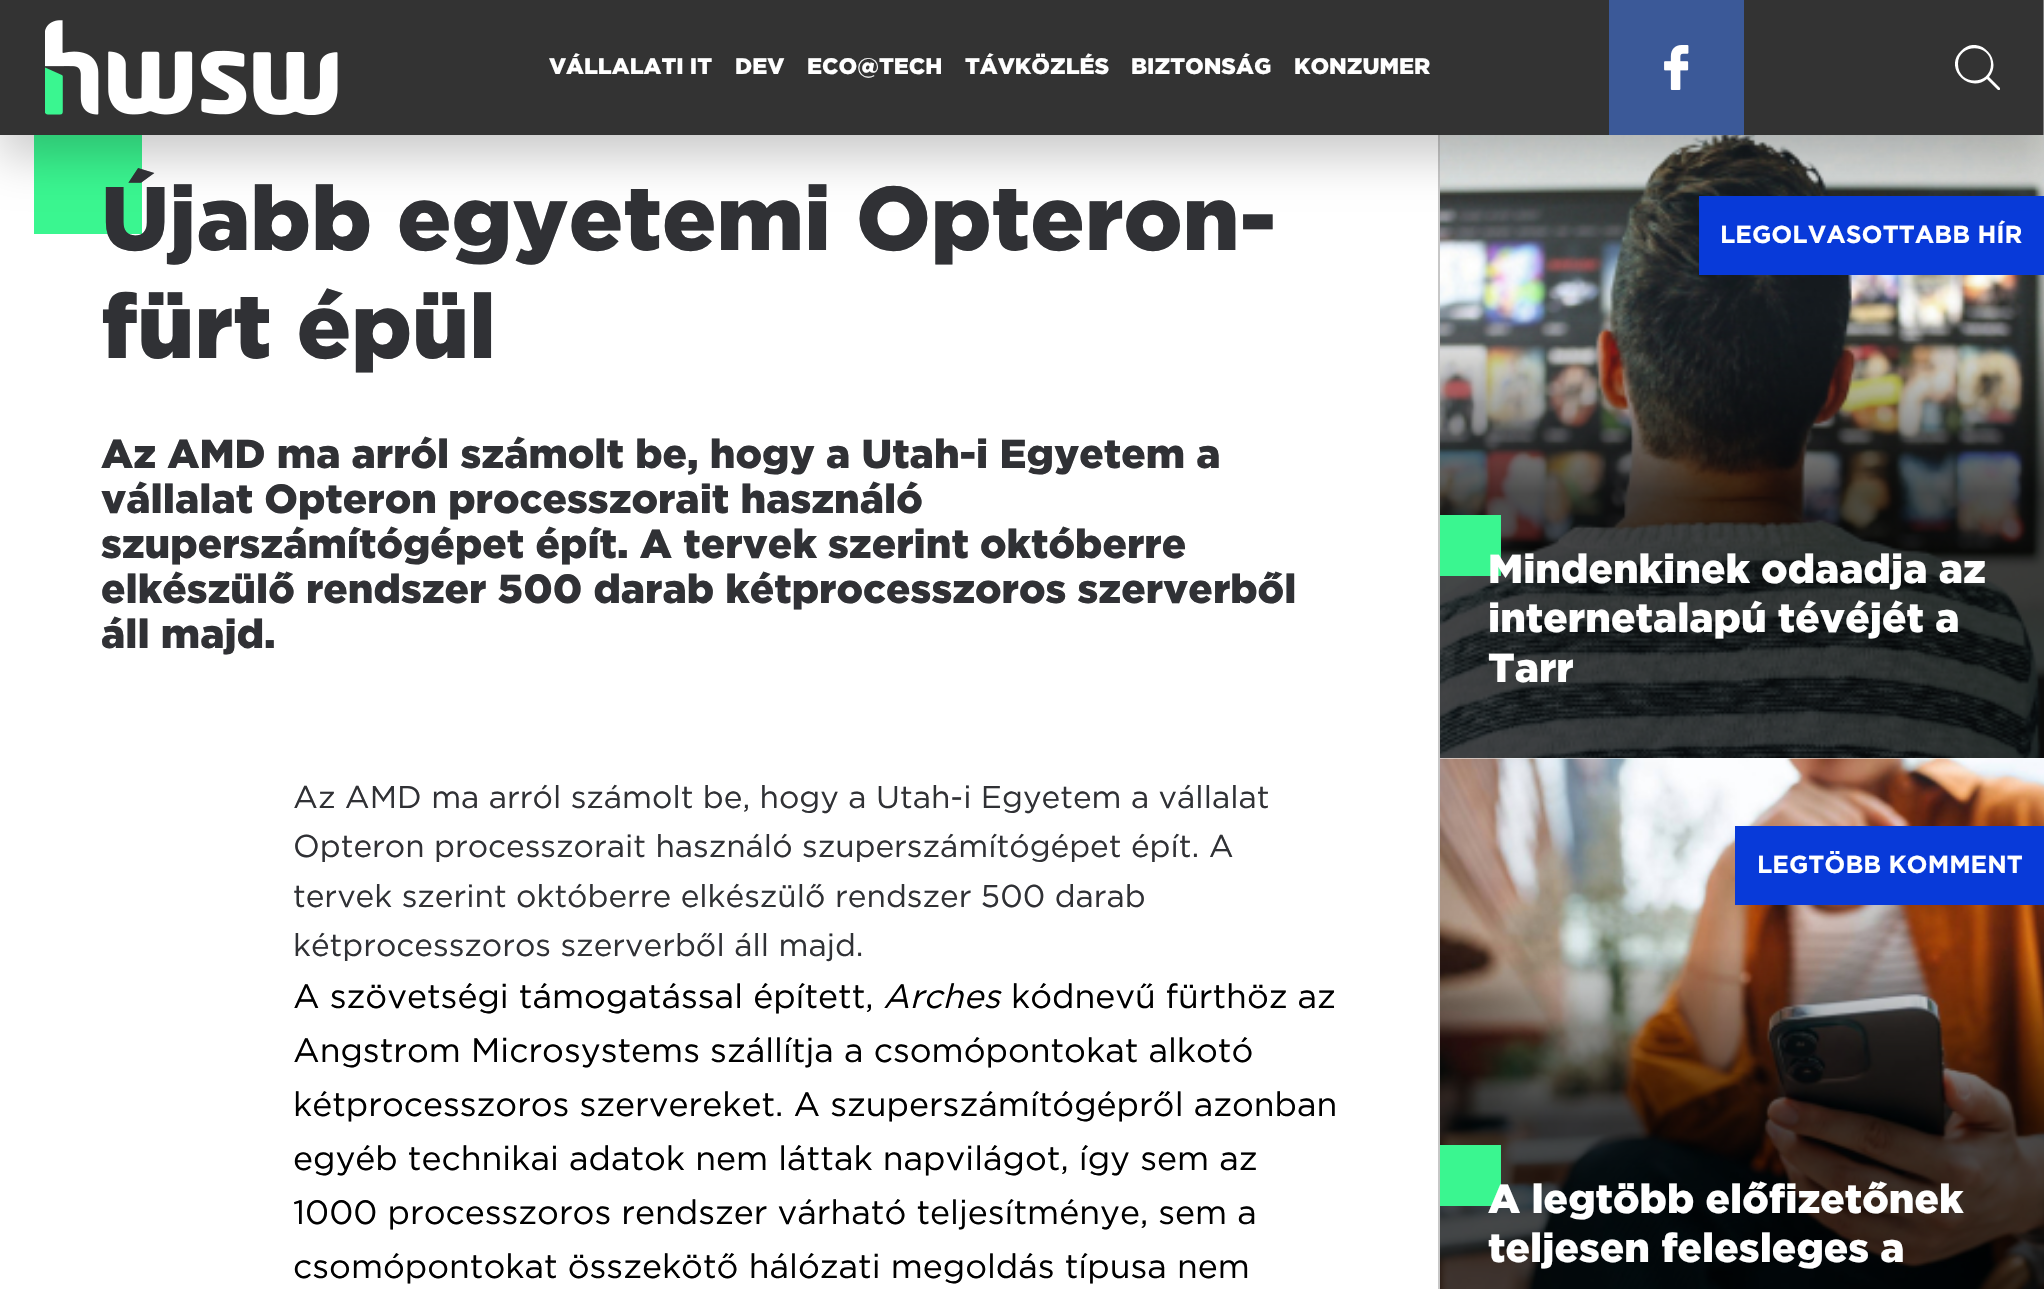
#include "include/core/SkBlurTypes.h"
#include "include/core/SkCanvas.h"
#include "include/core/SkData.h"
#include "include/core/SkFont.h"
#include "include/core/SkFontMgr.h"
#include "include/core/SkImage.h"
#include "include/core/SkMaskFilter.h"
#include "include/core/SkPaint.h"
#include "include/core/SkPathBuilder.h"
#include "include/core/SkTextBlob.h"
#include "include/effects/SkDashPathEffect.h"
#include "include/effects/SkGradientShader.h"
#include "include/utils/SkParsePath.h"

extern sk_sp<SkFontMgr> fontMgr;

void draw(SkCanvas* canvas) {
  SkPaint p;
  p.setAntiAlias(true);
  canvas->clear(SK_ColorWHITE);
  p.setColor(SkColorSetRGB(58, 246, 144));
  canvas->drawRect(SkRect::MakeLTRB(34, 135, 142, 234), p);
  p.setColor(SkColorSetRGB(199, 199, 199));
  canvas->drawRect(SkRect::MakeLTRB(1438, 135, 1440, 1289), p);
  canvas->drawImageRect(SkImages::DeferredFromEncodedData(SkData::MakeFromFileName("images/3.png")), SkRect::MakeLTRB(1440, 135, 2044, 758), SkSamplingOptions());
  p.setColor(SkColorSetRGB(8, 58, 217));
  canvas->drawRect(SkRect::MakeLTRB(1699, 196, 2044, 275), p);
  p.setColor(SkColorSetARGB(51, 0, 0, 0));
  p.setMaskFilter(SkMaskFilter::MakeBlur(kNormal_SkBlurStyle, 22.5f));
  canvas->drawRect(SkRect::MakeLTRB(0, 23, 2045, 158), p);
  p.setMaskFilter(nullptr);
  p.setColor(SkColorSetRGB(51, 51, 51));
  canvas->drawRect(SkRect::MakeLTRB(0, 0, 2043, 135), p);
  canvas->drawImageRect(SkImages::DeferredFromEncodedData(SkData::MakeFromFileName("images/1.png")), SkRect::MakeLTRB(45, 20, 338, 115), SkSamplingOptions());
  p.setColor(SkColorSetRGB(59, 89, 152));
  canvas->drawRect(SkRect::MakeLTRB(1609, 0, 1744, 135), p);
  canvas->drawImageRect(SkImages::DeferredFromEncodedData(SkData::MakeFromFileName("images/2.png")), SkRect::MakeLTRB(1664, 45, 1689, 90), SkSamplingOptions());
  canvas->save();
  canvas->clipRect(SkRect::MakeLTRB(1955, 45, 2000, 90));
  p.setColor(SK_ColorWHITE);
  canvas->drawPath(SkPathBuilder().moveTo(2000, 88).lineTo(1989, 77).cubicTo(2004, 59, 1978, 33, 1961, 51).cubicTo(1943, 68, 1969, 94, 1987, 79).lineTo(1998, 90).cubicTo(1999, 91, 2001, 89, 2000, 88).close().moveTo(1958, 64).cubicTo(1958, 43, 1991, 43, 1991, 64).cubicTo(1991, 86, 1958, 86, 1958, 64).close().detach(), p);
  canvas->restore();
  p.setColor(SkColorSetRGB(125, 125, 125));
  canvas->drawRect(SkRect::MakeLTRB(2043, 0, 2044, 135), p);
  p.setColor(SkColorSetRGB(58, 246, 144));
  canvas->drawRect(SkRect::MakeLTRB(1440, 515, 1501, 576), p);
  canvas->drawImageRect(SkImages::DeferredFromEncodedData(SkData::MakeFromFileName("images/4.png")), SkRect::MakeLTRB(1440, 758, 2044, 1289), SkSamplingOptions());
  p.setColor(SkColorSetRGB(8, 58, 217));
  canvas->drawRect(SkRect::MakeLTRB(1735, 826, 2044, 905), p);
  p.setColor(SkColorSetRGB(58, 246, 144));
  canvas->drawRect(SkRect::MakeLTRB(1440, 1145, 1501, 1206), p);
  SkFont font1(fontMgr->matchFamilyStyle("Gotham", SkFontStyle(900, SkFontStyle::kNormal_Width, SkFontStyle::kUpright_Slant)), 22.5f);
  font1.setSubpixel(true);
  p.setColor(SK_ColorWHITE);
  canvas->drawString("VÁLLALATI IT", 549, 74, font1, p);
  canvas->drawString("DEV", 735, 74, font1, p);
  canvas->drawString("ECO@TECH", 807, 74, font1, p);
  canvas->drawString("TÁVKÖZLÉS", 965, 74, font1, p);
  canvas->drawString("BIZTONSÁG", 1131, 74, font1, p);
  canvas->drawString("KONZUMER", 1294, 74, font1, p);
  SkFont font2(fontMgr->matchFamilyStyle("Gotham", SkFontStyle(900, SkFontStyle::kNormal_Width, SkFontStyle::kUpright_Slant)), 90);
  font2.setSubpixel(true);
  p.setColor(SkColorSetRGB(48, 49, 53));
  canvas->drawString("Újabb egyetemi Opteron-", 101, 250, font2, p);
  canvas->drawString("fürt épül", 101, 358, font2, p);
  SkFont font3(fontMgr->matchFamilyStyle("Gotham", SkFontStyle(900, SkFontStyle::kNormal_Width, SkFontStyle::kUpright_Slant)), 40.5f);
  font3.setSubpixel(true);
  canvas->drawString("Az AMD ma arról számolt be, hogy a Utah-i Egyetem a", 101, 468, font3, p);
  canvas->drawString("vállalat Opteron processzorait használó", 101, 513, font3, p);
  canvas->drawString("szuperszámítógépet épít. A tervek szerint októberre", 101, 558, font3, p);
  canvas->drawString("elkészülő rendszer 500 darab kétprocesszoros szerverből", 101, 603, font3, p);
  canvas->drawString("áll majd.", 101, 648, font3, p);
  SkFont font4(fontMgr->matchFamilyStyle("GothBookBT", SkFontStyle::Normal()), 31.5f);
  font4.setSubpixel(true);
  canvas->drawString("Az AMD ma arról számolt be, hogy a Utah-i Egyetem a vállalat", 293, 808, font4, p);
  canvas->drawString("Opteron processzorait használó szuperszámítógépet épít. A", 293, 857, font4, p);
  canvas->drawString("tervek szerint októberre elkészülő rendszer 500 darab", 293, 907, font4, p);
  canvas->drawString("kétprocesszoros szerverből áll majd.", 293, 956, font4, p);
  SkFont font5(fontMgr->matchFamilyStyle("GothBookBT", SkFontStyle::Normal()), 33.75f);
  font5.setSubpixel(true);
  p.setColor(SK_ColorBLACK);
  canvas->drawString("A szövetségi támogatással épített,", 293, 1008, font5, p);
  SkFont font6(fontMgr->matchFamilyStyle("GothBookBT", SkFontStyle::Italic()), 33.75f);
  font6.setSubpixel(true);
  canvas->drawString("Arches", 883, 1008, font6, p);
  canvas->drawString("kódnevű fürthöz az", 1011, 1008, font5, p);
  canvas->drawString("Angstrom Microsystems szállítja a csomópontokat alkotó", 293, 1062, font5, p);
  canvas->drawString("kétprocesszoros szervereket. A szuperszámítógépről azonban", 293, 1116, font5, p);
  canvas->drawString("egyéb technikai adatok nem láttak napvilágot, így sem az", 293, 1170, font5, p);
  canvas->drawString("1000 processzoros rendszer várható teljesítménye, sem a", 293, 1224, font5, p);
  canvas->drawString("csomópontokat összekötő hálózati megoldás típusa nem", 293, 1278, font5, p);
  SkFont font7(fontMgr->matchFamilyStyle("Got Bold", SkFontStyle::Bold()), 24.75f);
  font7.setSubpixel(true);
  p.setColor(SK_ColorWHITE);
  canvas->drawString("LEGOLVASOTTABB HÍR", 1720, 243, font7, p);
  canvas->drawString("Mindenkinek odaadja az", 1488, 583, font3, p);
  canvas->drawString("internetalapú tévéjét a", 1488, 632, font3, p);
  canvas->drawString("Tarr", 1488, 682, font3, p);
  canvas->drawString("LEGTÖBB KOMMENT", 1757, 873, font7, p);
  canvas->drawString("A legtöbb előfizetőnek", 1488, 1213, font3, p);
  canvas->drawString("teljesen felesleges a", 1488, 1262, font3, p);
}
